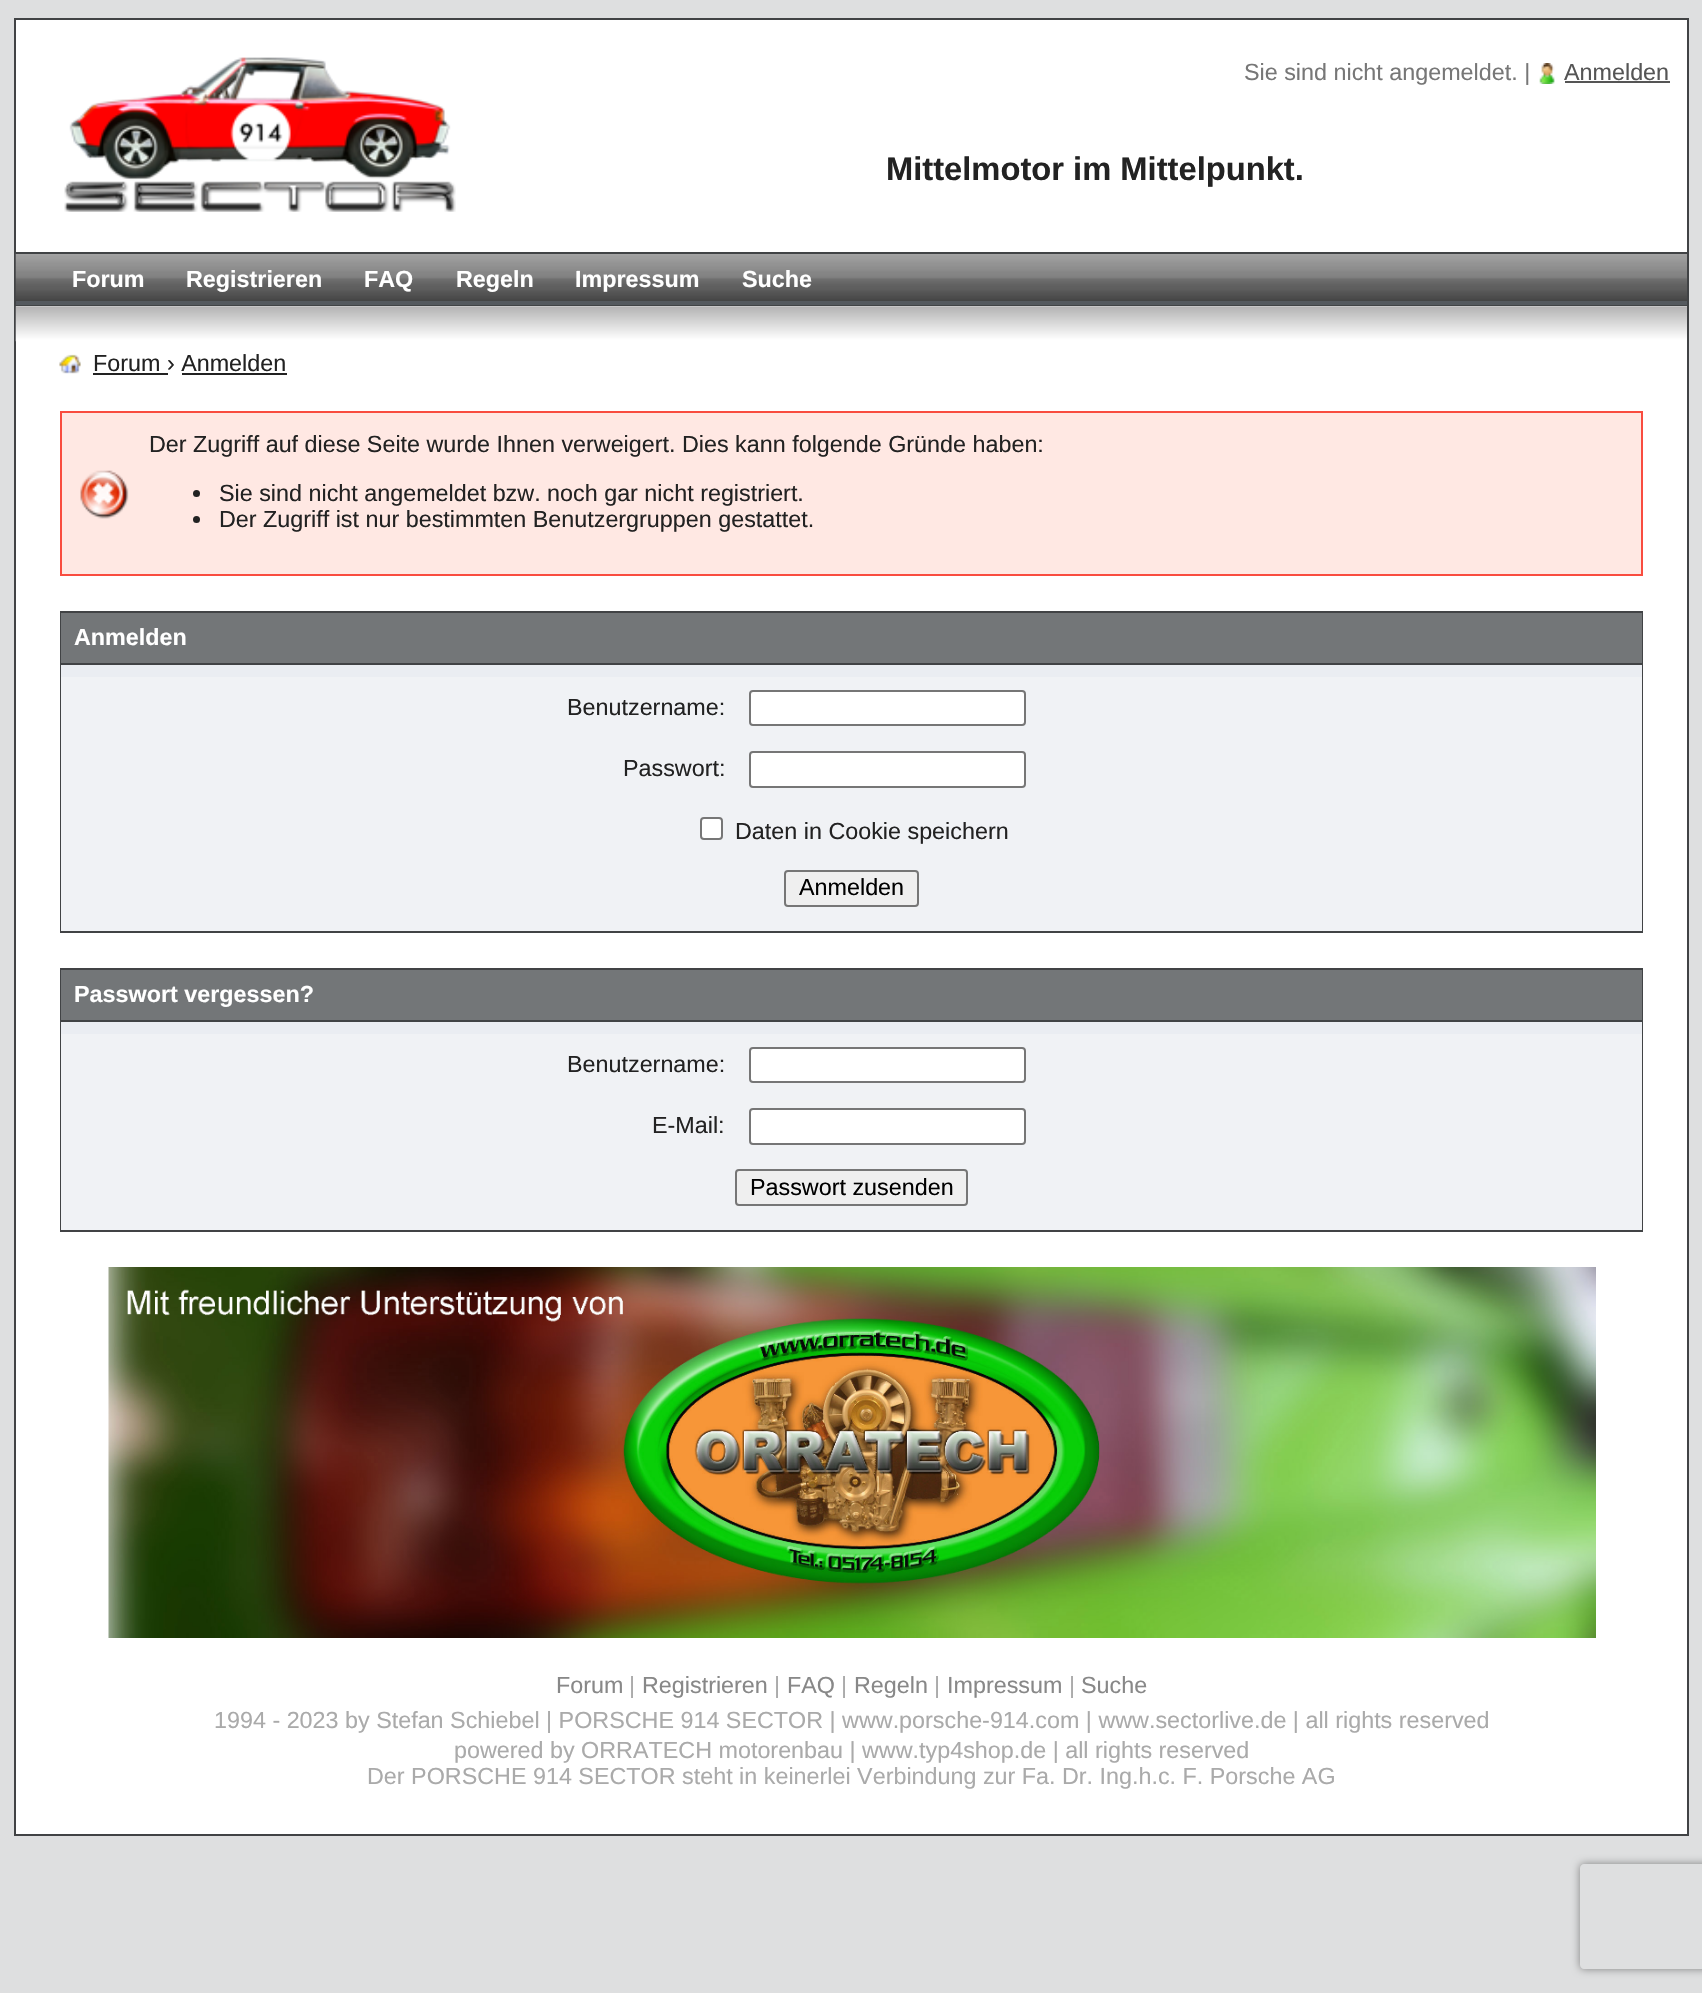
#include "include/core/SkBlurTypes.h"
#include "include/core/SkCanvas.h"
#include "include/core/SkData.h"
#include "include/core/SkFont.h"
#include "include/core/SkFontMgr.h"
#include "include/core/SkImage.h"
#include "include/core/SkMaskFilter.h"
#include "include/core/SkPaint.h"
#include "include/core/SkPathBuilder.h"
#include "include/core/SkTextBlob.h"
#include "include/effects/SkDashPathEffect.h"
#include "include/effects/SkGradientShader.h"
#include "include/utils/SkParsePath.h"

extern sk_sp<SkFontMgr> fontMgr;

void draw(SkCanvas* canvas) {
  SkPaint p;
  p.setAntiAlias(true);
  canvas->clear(SkColorSetRGB(222, 223, 224));
  p.setColor(SK_ColorWHITE);
  canvas->drawRect(SkRect::MakeLTRB(16, 20, 1687, 252), p);
  p.setStyle(SkPaint::kStroke_Style);
  p.setStrokeWidth(2);
  p.setColor(SkColorSetRGB(65, 67, 69));
  canvas->drawRect(SkRect::MakeLTRB(15, 19, 1688, 1835), p);
  canvas->drawImageRect(SkImages::DeferredFromEncodedData(SkData::MakeFromFileName("images/1.png")), SkRect::MakeLTRB(64, 57, 456, 212), SkSamplingOptions());
  canvas->drawImageRect(SkImages::DeferredFromEncodedData(SkData::MakeFromFileName("images/2.png")), SkRect::MakeLTRB(1539, 63, 1555, 84), SkSamplingOptions());
  p.setStyle(SkPaint::kFill_Style);
  p.setColor(SkColorSetRGB(85, 85, 85));
  canvas->drawRect(SkRect::MakeLTRB(1565, 81, 1670, 83), p);
  p.setColor(SkColorSetRGB(85, 89, 94));
  canvas->drawRect(SkRect::MakeLTRB(16, 301, 1687, 305), p);
  canvas->drawImageRect(SkImages::DeferredFromEncodedData(SkData::MakeFromFileName("images/3.png")), SkRect::MakeLTRB(15, 253, 1687, 301), SkSamplingOptions());
  p.setColor(SkColorSetRGB(65, 67, 69));
  canvas->drawRect(SkRect::MakeLTRB(16, 252, 1687, 254), p);
  canvas->drawRect(SkRect::MakeLTRB(16, 305, 1687, 306), p);
  p.setColor(SK_ColorWHITE);
  canvas->drawRect(SkRect::MakeLTRB(16, 306, 1687, 1834), p);
  canvas->drawImageRect(SkImages::DeferredFromEncodedData(SkData::MakeFromFileName("images/4.png")), SkRect::MakeLTRB(15, 306, 1687, 342), SkSamplingOptions());
  canvas->drawImageRect(SkImages::DeferredFromEncodedData(SkData::MakeFromFileName("images/5.png")), SkRect::MakeLTRB(59, 354, 81, 374), SkSamplingOptions());
  p.setColor(SkColorSetRGB(34, 34, 34));
  canvas->drawRect(SkRect::MakeLTRB(93, 373, 168, 375), p);
  canvas->drawRect(SkRect::MakeLTRB(182, 373, 287, 375), p);
  p.setColor(SkColorSetRGB(255, 232, 227));
  canvas->drawRect(SkRect::MakeLTRB(62, 413, 1641, 574), p);
  canvas->drawImageRect(SkImages::DeferredFromEncodedData(SkData::MakeFromFileName("images/6.png")), SkRect::MakeLTRB(80, 470, 129, 519), SkSamplingOptions());
  p.setStyle(SkPaint::kStroke_Style);
  p.setColor(SkColorSetRGB(249, 76, 63));
  canvas->drawRect(SkRect::MakeLTRB(61, 412, 1642, 575), p);
  p.setStyle(SkPaint::kFill_Style);
  p.setColor(SkColorSetRGB(34, 34, 34));
  canvas->drawCircle(196.5f, 493.5f, 3.5f, p);
  canvas->drawCircle(196.5f, 519.5f, 3.5f, p);
  p.setStyle(SkPaint::kStroke_Style);
  p.setColor(SkColorSetRGB(65, 67, 69));
  canvas->drawRect(SkRect::MakeLTRB(61, 612, 1642, 932), p);
  p.setStyle(SkPaint::kFill_Style);
  p.setColor(SkColorSetRGB(115, 118, 120));
  canvas->drawRect(SkRect::MakeLTRB(61, 613, 1642, 663), p);
  p.setColor(SkColorSetRGB(65, 67, 69));
  canvas->drawRect(SkRect::MakeLTRB(61, 663, 1642, 665), p);
  p.setColor(SkColorSetRGB(240, 242, 245));
  canvas->drawRect(SkRect::MakeLTRB(61, 677, 1642, 931), p);
  p.setColor(SkColorSetRGB(234, 237, 242));
  canvas->drawRect(SkRect::MakeLTRB(61, 665, 1642, 677), p);
  p.setColor(SK_ColorWHITE);
  canvas->drawRoundRect(SkRect::MakeLTRB(750, 691, 1025, 725), 3, 3, p);
  p.setStyle(SkPaint::kStroke_Style);
  p.setColor(SkColorSetRGB(118, 118, 118));
  canvas->drawRoundRect(SkRect::MakeLTRB(750, 691, 1025, 725), 3, 3, p);
  p.setStyle(SkPaint::kFill_Style);
  p.setColor(SK_ColorWHITE);
  canvas->drawRoundRect(SkRect::MakeLTRB(750, 752, 1025, 787), 3, 3, p);
  p.setStyle(SkPaint::kStroke_Style);
  p.setColor(SkColorSetRGB(118, 118, 118));
  canvas->drawRoundRect(SkRect::MakeLTRB(750, 752, 1025, 787), 3, 3, p);
  p.setStyle(SkPaint::kFill_Style);
  p.setColor(SK_ColorWHITE);
  canvas->drawRoundRect(SkRect::MakeLTRB(701, 818, 722, 839), 3, 3, p);
  p.setStyle(SkPaint::kStroke_Style);
  p.setColor(SkColorSetRGB(118, 118, 118));
  canvas->drawRoundRect(SkRect::MakeLTRB(701, 818, 722, 839), 3, 3, p);
  p.setStyle(SkPaint::kFill_Style);
  p.setColor(SkColorSetRGB(239, 239, 239));
  canvas->drawRoundRect(SkRect::MakeLTRB(785, 871, 918, 906), 3, 3, p);
  p.setStyle(SkPaint::kStroke_Style);
  p.setColor(SkColorSetRGB(118, 118, 118));
  canvas->drawRoundRect(SkRect::MakeLTRB(785, 871, 918, 906), 3, 3, p);
  p.setColor(SkColorSetRGB(65, 67, 69));
  canvas->drawRect(SkRect::MakeLTRB(61, 969, 1642, 1231), p);
  p.setStyle(SkPaint::kFill_Style);
  p.setColor(SkColorSetRGB(115, 118, 120));
  canvas->drawRect(SkRect::MakeLTRB(61, 970, 1642, 1020), p);
  p.setColor(SkColorSetRGB(65, 67, 69));
  canvas->drawRect(SkRect::MakeLTRB(61, 1020, 1642, 1022), p);
  p.setColor(SkColorSetRGB(240, 242, 245));
  canvas->drawRect(SkRect::MakeLTRB(61, 1034, 1642, 1230), p);
  p.setColor(SkColorSetRGB(234, 237, 242));
  canvas->drawRect(SkRect::MakeLTRB(61, 1022, 1642, 1034), p);
  p.setColor(SK_ColorWHITE);
  canvas->drawRoundRect(SkRect::MakeLTRB(750, 1048, 1025, 1082), 3, 3, p);
  p.setStyle(SkPaint::kStroke_Style);
  p.setColor(SkColorSetRGB(118, 118, 118));
  canvas->drawRoundRect(SkRect::MakeLTRB(750, 1048, 1025, 1082), 3, 3, p);
  p.setStyle(SkPaint::kFill_Style);
  p.setColor(SK_ColorWHITE);
  canvas->drawRoundRect(SkRect::MakeLTRB(750, 1109, 1025, 1144), 3, 3, p);
  p.setStyle(SkPaint::kStroke_Style);
  p.setColor(SkColorSetRGB(118, 118, 118));
  canvas->drawRoundRect(SkRect::MakeLTRB(750, 1109, 1025, 1144), 3, 3, p);
  p.setStyle(SkPaint::kFill_Style);
  p.setColor(SkColorSetRGB(239, 239, 239));
  canvas->drawRoundRect(SkRect::MakeLTRB(736, 1170, 967, 1205), 3, 3, p);
  p.setStyle(SkPaint::kStroke_Style);
  p.setColor(SkColorSetRGB(118, 118, 118));
  canvas->drawRoundRect(SkRect::MakeLTRB(736, 1170, 967, 1205), 3, 3, p);
  canvas->drawImageRect(SkImages::DeferredFromEncodedData(SkData::MakeFromFileName("images/7.png")), SkRect::MakeLTRB(108, 1267, 1596, 1638), SkSamplingOptions());
  canvas->save();
  canvas->clipPath(SkPathBuilder(SkPathFillType::kEvenOdd).moveTo(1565, 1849).lineTo(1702, 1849).lineTo(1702, 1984).lineTo(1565, 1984).close().moveTo(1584, 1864).lineTo(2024, 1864).cubicTo(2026, 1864, 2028, 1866, 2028, 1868).lineTo(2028, 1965).cubicTo(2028, 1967, 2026, 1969, 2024, 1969).lineTo(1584, 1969).cubicTo(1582, 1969, 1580, 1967, 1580, 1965).lineTo(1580, 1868).cubicTo(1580, 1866, 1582, 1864, 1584, 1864).close().detach(), true);
  p.setStyle(SkPaint::kFill_Style);
  p.setColor(SkColorSetRGB(128, 128, 128));
  p.setMaskFilter(SkMaskFilter::MakeBlur(kNormal_SkBlurStyle, 4.5f));
  canvas->drawRoundRect(SkRect::MakeLTRB(1580, 1864, 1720, 1969), 4, 4, p);
  p.setMaskFilter(nullptr);
  canvas->restore();
  SkFont font1(fontMgr->matchFamilyStyle("Liberation Sans", SkFontStyle::Normal()), 23.33f);
  font1.setSubpixel(true);
  p.setColor(SkColorSetRGB(119, 119, 119));
  canvas->drawString("Sie sind nicht angemeldet. |", 1244, 80, font1, p);
  p.setColor(SkColorSetRGB(85, 85, 85));
  canvas->drawString("Anmelden", 1564, 80, font1, p);
  SkFont font2(fontMgr->matchFamilyStyle("Liberation Sans", SkFontStyle::Bold()), 32.7f);
  font2.setSubpixel(true);
  p.setColor(SkColorSetRGB(34, 34, 34));
  canvas->drawString("Mittelmotor im Mittelpunkt.", 886, 180, font2, p);
  SkFont font3(fontMgr->matchFamilyStyle("Liberation Sans", SkFontStyle::Bold()), 23.33f);
  font3.setSubpixel(true);
  p.setColor(SK_ColorWHITE);
  canvas->drawString("Forum", 72, 287, font3, p);
  canvas->drawString("Registrieren", 186, 287, font3, p);
  canvas->drawString("FAQ", 364, 287, font3, p);
  canvas->drawString("Regeln", 456, 287, font3, p);
  canvas->drawString("Impressum", 575, 287, font3, p);
  canvas->drawString("Suche", 742, 287, font3, p);
  p.setColor(SkColorSetRGB(34, 34, 34));
  canvas->drawString("Forum › Anmelden", 93, 371, font1, p);
  canvas->drawString("Der Zugriff auf diese Seite wurde Ihnen verweigert. Dies kann folgende Gründe haben:", 149, 452, font1, p);
  canvas->drawString("Sie sind nicht angemeldet bzw. noch gar nicht registriert.", 219, 501, font1, p);
  canvas->drawString("Der Zugriff ist nur bestimmten Benutzergruppen gestattet.", 219, 527, font1, p);
  p.setColor(SK_ColorWHITE);
  canvas->drawString("Anmelden", 74, 645, font3, p);
  p.setColor(SkColorSetRGB(34, 34, 34));
  canvas->drawString("Benutzername:", 567, 715, font1, p);
  canvas->drawString("Passwort:", 623, 776, font1, p);
  canvas->drawString("Daten in Cookie speichern", 735, 839, font1, p);
  p.setColor(SK_ColorBLACK);
  canvas->drawString("Anmelden", 799, 895, font1, p);
  p.setColor(SK_ColorWHITE);
  canvas->drawString("Passwort vergessen?", 74, 1002, font3, p);
  p.setColor(SkColorSetRGB(34, 34, 34));
  canvas->drawString("Benutzername:", 567, 1072, font1, p);
  canvas->drawString("E-Mail:", 652, 1133, font1, p);
  p.setColor(SK_ColorBLACK);
  canvas->drawString("Passwort zusenden", 750, 1195, font1, p);
  p.setColor(SkColorSetRGB(136, 136, 136));
  canvas->drawString("Forum", 556, 1693, font1, p);
  p.setColor(SkColorSetRGB(170, 170, 170));
  canvas->drawString("|", 629, 1693, font1, p);
  p.setColor(SkColorSetRGB(136, 136, 136));
  canvas->drawString("Registrieren", 642, 1693, font1, p);
  p.setColor(SkColorSetRGB(170, 170, 170));
  canvas->drawString("|", 774, 1693, font1, p);
  p.setColor(SkColorSetRGB(136, 136, 136));
  canvas->drawString("FAQ", 787, 1693, font1, p);
  p.setColor(SkColorSetRGB(170, 170, 170));
  canvas->drawString("|", 841, 1693, font1, p);
  p.setColor(SkColorSetRGB(136, 136, 136));
  canvas->drawString("Regeln", 854, 1693, font1, p);
  p.setColor(SkColorSetRGB(170, 170, 170));
  canvas->drawString("|", 934, 1693, font1, p);
  p.setColor(SkColorSetRGB(136, 136, 136));
  canvas->drawString("Impressum", 947, 1693, font1, p);
  p.setColor(SkColorSetRGB(170, 170, 170));
  canvas->drawString("|", 1069, 1693, font1, p);
  p.setColor(SkColorSetRGB(136, 136, 136));
  canvas->drawString("Suche", 1081, 1693, font1, p);
  p.setColor(SkColorSetRGB(170, 170, 170));
  canvas->drawString("1994 - 2023 by Stefan Schiebel | PORSCHE 914 SECTOR | www.porsche-914.com | www.sectorlive.de | all rights reserved", 214, 1728, font1, p);
  canvas->drawString("powered by ORRATECH motorenbau | www.typ4shop.de | all rights reserved", 454, 1758, font1, p);
  canvas->drawString("Der PORSCHE 914 SECTOR steht in keinerlei Verbindung zur Fa. Dr. Ing.h.c. F. Porsche AG", 367, 1784, font1, p);
}
